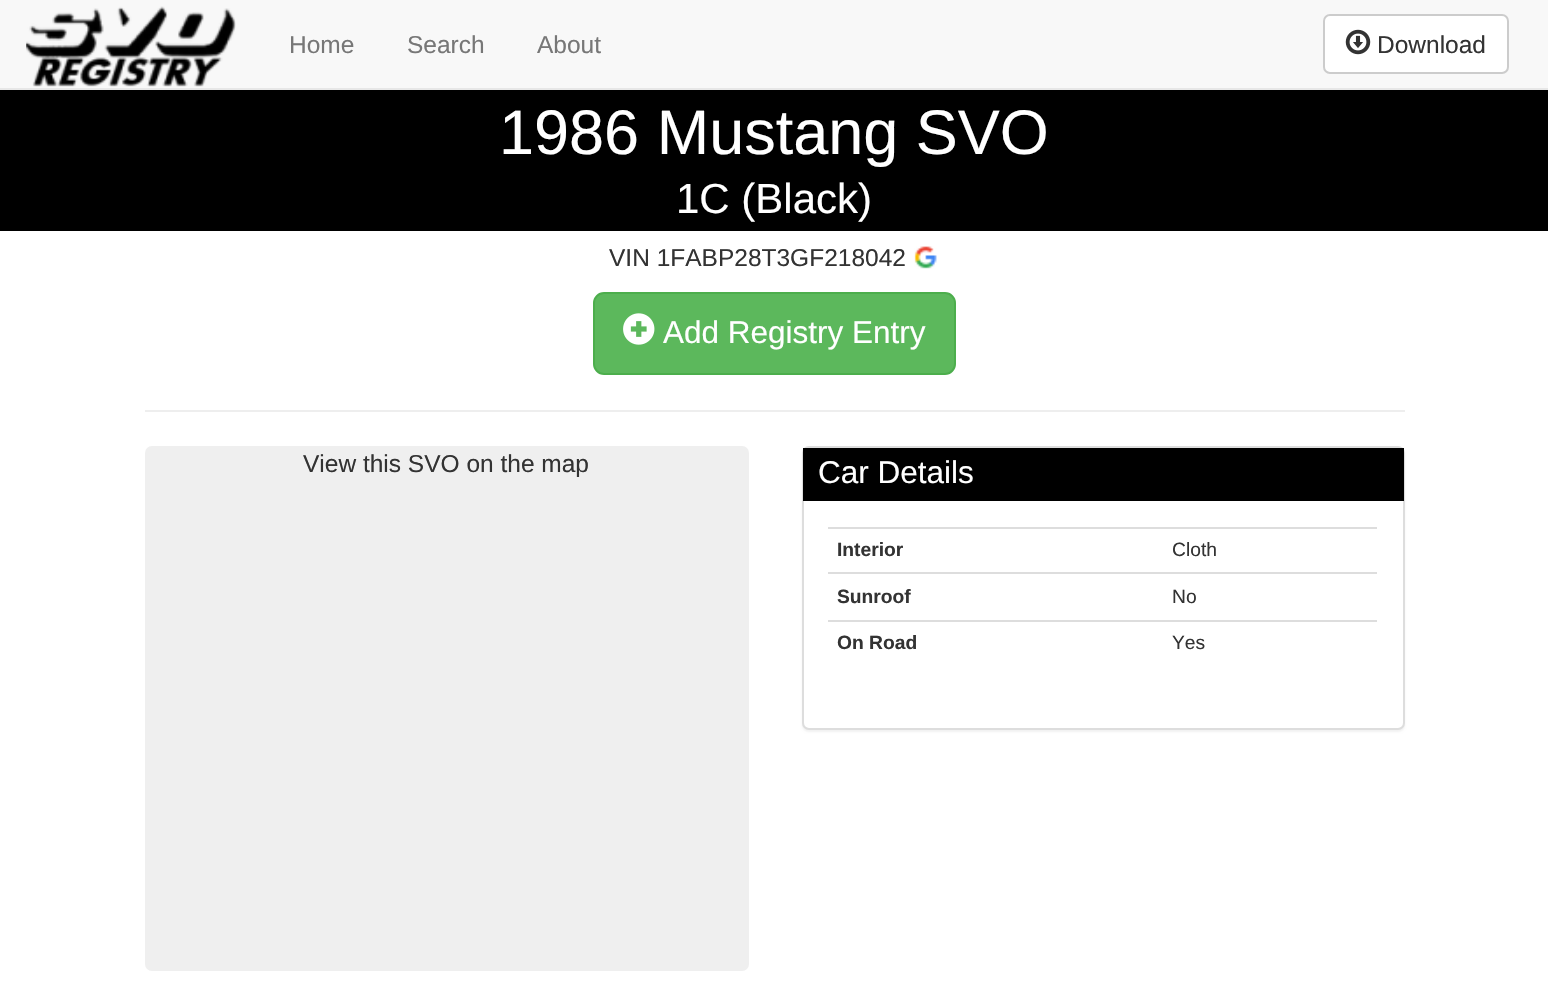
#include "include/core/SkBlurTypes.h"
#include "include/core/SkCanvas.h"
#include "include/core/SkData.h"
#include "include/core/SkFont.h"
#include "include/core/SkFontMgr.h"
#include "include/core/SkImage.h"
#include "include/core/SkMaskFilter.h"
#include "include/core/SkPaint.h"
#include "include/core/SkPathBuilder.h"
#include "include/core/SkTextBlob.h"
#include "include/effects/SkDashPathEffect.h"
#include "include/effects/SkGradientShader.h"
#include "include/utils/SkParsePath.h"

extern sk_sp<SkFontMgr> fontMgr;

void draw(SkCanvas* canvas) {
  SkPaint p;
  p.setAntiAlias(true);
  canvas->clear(SK_ColorWHITE);
  p.setColor(SkColorSetRGB(248, 248, 248));
  canvas->drawRect(SkRect::MakeLTRB(0, 0, 1548, 88), p);
  p.setColor(SkColorSetRGB(231, 231, 231));
  canvas->drawRect(SkRect::MakeLTRB(0, 88, 1548, 90), p);
  canvas->drawImageRect(SkImages::DeferredFromEncodedData(SkData::MakeFromFileName("images/1.png")), SkRect::MakeLTRB(26, 6, 236, 87), SkSamplingOptions());
  p.setColor(SK_ColorWHITE);
  canvas->drawRoundRect(SkRect::MakeLTRB(1324, 15, 1508, 73), 6, 6, p);
  p.setStyle(SkPaint::kStroke_Style);
  p.setStrokeWidth(2);
  p.setColor(SkColorSetRGB(204, 204, 204));
  canvas->drawRoundRect(SkRect::MakeLTRB(1324, 15, 1508, 73), 6, 6, p);
  canvas->drawImageRect(SkImages::DeferredFromEncodedData(SkData::MakeFromFileName("images/2.png")), SkRect::MakeLTRB(1345, 29, 1371, 55), SkSamplingOptions());
  p.setStyle(SkPaint::kFill_Style);
  p.setColor(SK_ColorBLACK);
  canvas->drawRect(SkRect::MakeLTRB(0, 90, 1548, 231), p);
  canvas->drawImageRect(SkImages::DeferredFromEncodedData(SkData::MakeFromFileName("images/3.png")), SkRect::MakeLTRB(914, 246, 937, 269), SkSamplingOptions());
  p.setColor(SkColorSetRGB(92, 184, 92));
  canvas->drawRoundRect(SkRect::MakeLTRB(594, 293, 955, 374), 10, 10, p);
  p.setStyle(SkPaint::kStroke_Style);
  p.setColor(SkColorSetRGB(76, 174, 76));
  canvas->drawRoundRect(SkRect::MakeLTRB(594, 293, 955, 374), 10, 10, p);
  canvas->drawImageRect(SkImages::DeferredFromEncodedData(SkData::MakeFromFileName("images/4.png")), SkRect::MakeLTRB(623, 313, 655, 345), SkSamplingOptions());
  p.setStyle(SkPaint::kFill_Style);
  p.setColor(SkColorSetRGB(238, 238, 238));
  canvas->drawRect(SkRect::MakeLTRB(145, 410, 1405, 412), p);
  p.setColor(SkColorSetRGB(239, 239, 239));
  canvas->drawRoundRect(SkRect::MakeLTRB(145, 446, 749, 971), 7, 7, p);
  p.setColor(SkColorSetARGB(13, 0, 0, 0));
  p.setMaskFilter(SkMaskFilter::MakeBlur(kNormal_SkBlurStyle, 1));
  canvas->drawRoundRect(SkRect::MakeLTRB(802, 448, 1405, 732), 7, 7, p);
  p.setMaskFilter(nullptr);
  p.setColor(SK_ColorWHITE);
  canvas->drawRoundRect(SkRect::MakeLTRB(803, 447, 1404, 729), 6, 6, p);
  p.setStyle(SkPaint::kStroke_Style);
  p.setColor(SkColorSetRGB(221, 221, 221));
  canvas->drawRoundRect(SkRect::MakeLTRB(803, 447, 1404, 729), 6, 6, p);
  p.setStyle(SkPaint::kFill_Style);
  p.setColor(SK_ColorBLACK);
  canvas->drawRect(SkRect::MakeLTRB(803, 448, 1404, 501), p);
  p.setColor(SkColorSetRGB(221, 221, 221));
  canvas->drawRect(SkRect::MakeLTRB(828, 527, 1377, 529), p);
  canvas->drawRect(SkRect::MakeLTRB(828, 572, 1377, 574), p);
  canvas->drawRect(SkRect::MakeLTRB(828, 620, 1377, 622), p);
  SkFont font1(fontMgr->matchFamilyStyle("Liberation Sans", SkFontStyle::Normal()), 24.5f);
  font1.setSubpixel(true);
  p.setColor(SkColorSetRGB(119, 119, 119));
  canvas->drawString("Home", 289, 53, font1, p);
  canvas->drawString("Search", 407, 53, font1, p);
  canvas->drawString("About", 537, 53, font1, p);
  p.setColor(SkColorSetRGB(51, 51, 51));
  canvas->drawString("Download", 1377, 53, font1, p);
  SkFont font2(fontMgr->matchFamilyStyle("Liberation Sans", SkFontStyle::Normal()), 63);
  font2.setSubpixel(true);
  p.setColor(SK_ColorWHITE);
  canvas->drawString("1986 Mustang SVO", 499, 154, font2, p);
  SkFont font3(fontMgr->matchFamilyStyle("Liberation Sans", SkFontStyle::Normal()), 42);
  font3.setSubpixel(true);
  canvas->drawString("1C (Black)", 676, 213, font3, p);
  p.setColor(SkColorSetRGB(51, 51, 51));
  canvas->drawString("VIN 1FABP28T3GF218042", 609, 266, font1, p);
  SkFont font4(fontMgr->matchFamilyStyle("Liberation Sans", SkFontStyle::Normal()), 31.5f);
  font4.setSubpixel(true);
  p.setColor(SK_ColorWHITE);
  canvas->drawString("Add Registry Entry", 663, 343, font4, p);
  p.setColor(SkColorSetRGB(51, 51, 51));
  canvas->drawString("View this SVO on the map", 303, 472, font1, p);
  p.setColor(SK_ColorWHITE);
  canvas->drawString("Car Details", 818, 483, font4, p);
  SkFont font5(fontMgr->matchFamilyStyle("Liberation Sans", SkFontStyle::Bold()), 19.25f);
  font5.setSubpixel(true);
  p.setColor(SkColorSetRGB(51, 51, 51));
  canvas->drawString("Interior", 837, 556, font5, p);
  SkFont font6(fontMgr->matchFamilyStyle("Liberation Sans", SkFontStyle::Normal()), 19.25f);
  font6.setSubpixel(true);
  canvas->drawString("Cloth", 1172, 556, font6, p);
  canvas->drawString("Sunroof", 837, 603, font5, p);
  canvas->drawString("No", 1172, 603, font6, p);
  canvas->drawString("On Road", 837, 649, font5, p);
  canvas->drawString("Yes", 1172, 649, font6, p);
}
